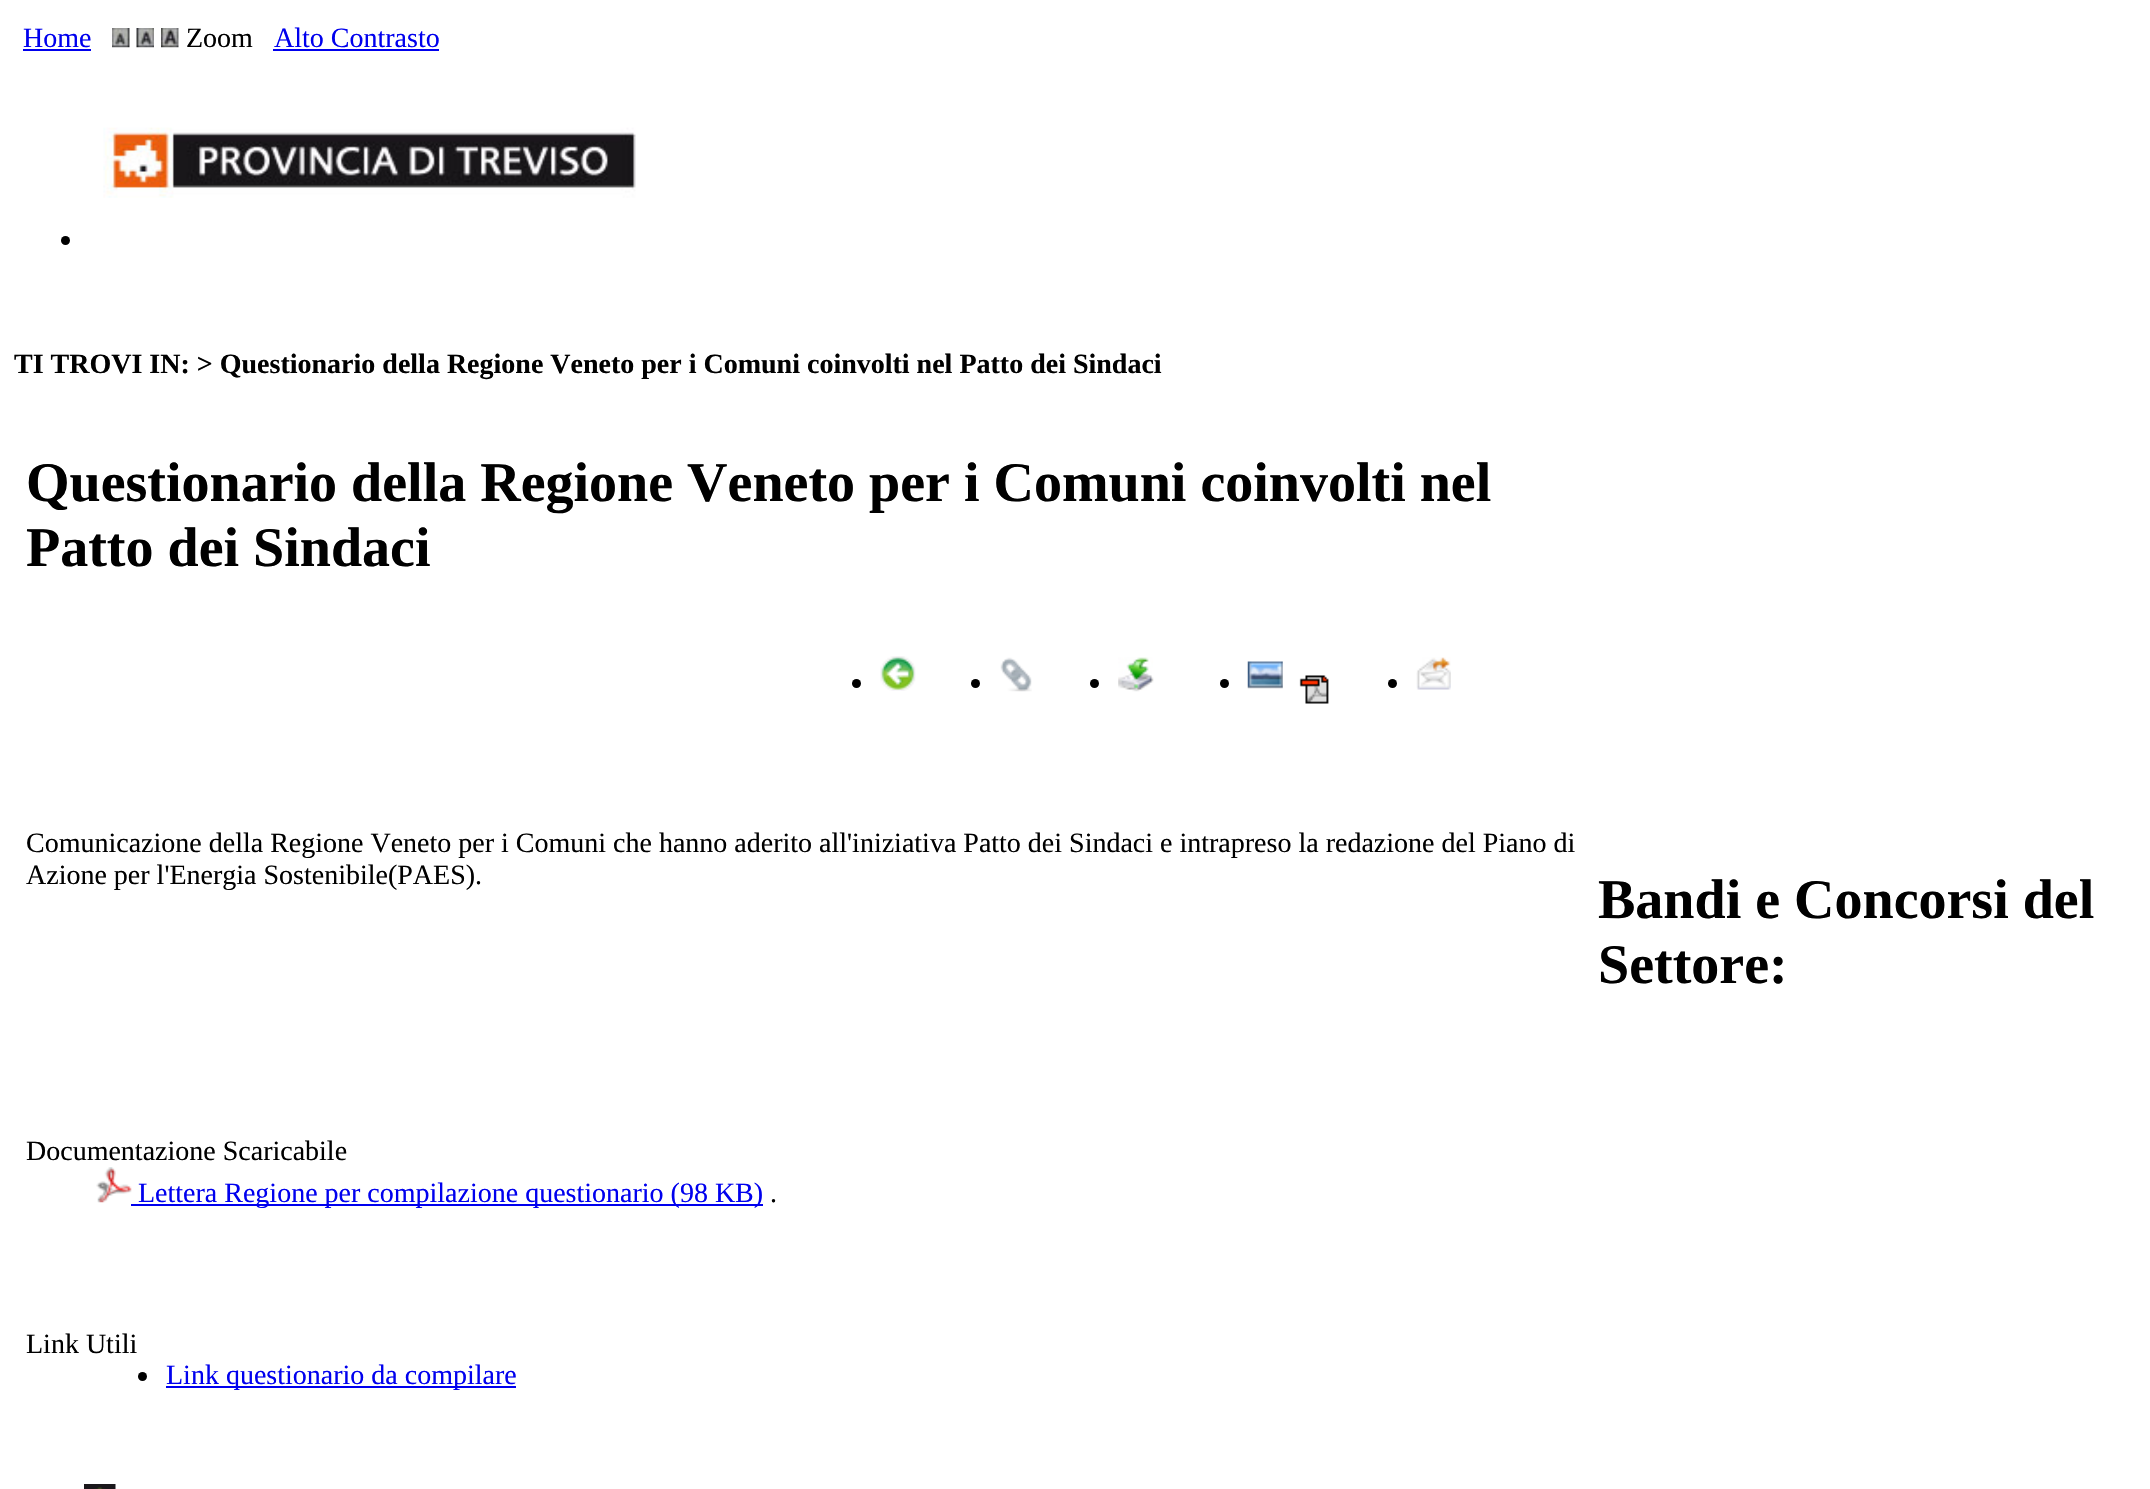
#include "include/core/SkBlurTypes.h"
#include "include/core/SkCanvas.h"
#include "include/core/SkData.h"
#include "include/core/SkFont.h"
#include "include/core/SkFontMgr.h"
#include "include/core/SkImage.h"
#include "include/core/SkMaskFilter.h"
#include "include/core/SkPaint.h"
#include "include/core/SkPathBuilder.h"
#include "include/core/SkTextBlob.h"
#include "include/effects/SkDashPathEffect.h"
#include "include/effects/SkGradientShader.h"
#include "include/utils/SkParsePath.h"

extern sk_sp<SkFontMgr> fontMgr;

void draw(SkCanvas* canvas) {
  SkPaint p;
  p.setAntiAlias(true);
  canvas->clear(SK_ColorWHITE);
  p.setColor(SkColorSetRGB(0, 0, 238));
  canvas->drawRect(SkRect::MakeLTRB(23, 49, 91, 51), p);
  canvas->drawImageRect(SkImages::DeferredFromEncodedData(SkData::MakeFromFileName("images/1.png")), SkRect::MakeLTRB(112, 28, 130, 48), SkSamplingOptions());
  canvas->drawImageRect(SkImages::DeferredFromEncodedData(SkData::MakeFromFileName("images/2.png")), SkRect::MakeLTRB(136, 28, 154, 48), SkSamplingOptions());
  canvas->drawImageRect(SkImages::DeferredFromEncodedData(SkData::MakeFromFileName("images/3.png")), SkRect::MakeLTRB(161, 28, 179, 48), SkSamplingOptions());
  canvas->drawRect(SkRect::MakeLTRB(273, 49, 439, 51), p);
  canvas->drawImageRect(SkImages::DeferredFromEncodedData(SkData::MakeFromFileName("images/4.png")), SkRect::MakeLTRB(103, 127, 636, 198), SkSamplingOptions());
  p.setColor(SK_ColorBLACK);
  canvas->drawCircle(65.5f, 240.5f, 4.5f, p);
  canvas->drawCircle(856.5f, 683.5f, 4.5f, p);
  canvas->drawImageRect(SkImages::DeferredFromEncodedData(SkData::MakeFromFileName("images/5.png")), SkRect::MakeLTRB(880, 656, 916, 691), SkSamplingOptions());
  canvas->drawCircle(975.5f, 683.5f, 4.5f, p);
  canvas->drawImageRect(SkImages::DeferredFromEncodedData(SkData::MakeFromFileName("images/6.png")), SkRect::MakeLTRB(1000, 657, 1032, 692), SkSamplingOptions());
  canvas->drawCircle(1094.5f, 683.5f, 4.5f, p);
  canvas->drawImageRect(SkImages::DeferredFromEncodedData(SkData::MakeFromFileName("images/7.png")), SkRect::MakeLTRB(1118, 657, 1154, 692), SkSamplingOptions());
  canvas->drawCircle(1224.5f, 683.5f, 4.5f, p);
  canvas->drawImageRect(SkImages::DeferredFromEncodedData(SkData::MakeFromFileName("images/8.png")), SkRect::MakeLTRB(1247, 661, 1283, 689), SkSamplingOptions());
  canvas->drawImageRect(SkImages::DeferredFromEncodedData(SkData::MakeFromFileName("images/9.png")), SkRect::MakeLTRB(1299, 675, 1329, 704), SkSamplingOptions());
  canvas->drawCircle(1392.5f, 683.5f, 4.5f, p);
  canvas->drawImageRect(SkImages::DeferredFromEncodedData(SkData::MakeFromFileName("images/10.png")), SkRect::MakeLTRB(1416, 657, 1451, 690), SkSamplingOptions());
  canvas->drawImageRect(SkImages::DeferredFromEncodedData(SkData::MakeFromFileName("images/11.png")), SkRect::MakeLTRB(96, 1167, 132, 1203), SkSamplingOptions());
  p.setColor(SkColorSetRGB(0, 0, 238));
  canvas->drawRect(SkRect::MakeLTRB(131, 1204, 763, 1206), p);
  p.setColor(SK_ColorBLACK);
  canvas->drawCircle(142.5f, 1376.5f, 4.5f, p);
  p.setColor(SkColorSetRGB(0, 0, 238));
  canvas->drawRect(SkRect::MakeLTRB(166, 1386, 516, 1388), p);
  canvas->drawImageRect(SkImages::DeferredFromEncodedData(SkData::MakeFromFileName("images/12.png")), SkRect::MakeLTRB(84, 1484, 116, 1489), SkSamplingOptions());
  SkFont font1(fontMgr->matchFamilyStyle("Liberation Serif", SkFontStyle::Normal()), 28);
  font1.setSubpixel(true);
  canvas->drawString("Home", 23, 47, font1, p);
  p.setColor(SK_ColorBLACK);
  canvas->drawString("Zoom", 186, 47, font1, p);
  p.setColor(SkColorSetRGB(0, 0, 238));
  canvas->drawString("Alto Contrasto", 274, 47, font1, p);
  SkFont font2(fontMgr->matchFamilyStyle("Liberation Serif", SkFontStyle::Bold()), 28);
  font2.setSubpixel(true);
  p.setColor(SK_ColorBLACK);
  canvas->drawString("TI TROVI IN: > Questionario della Regione Veneto per i Comuni coinvolti nel Patto dei Sindaci", 14, 373, font2, p);
  SkFont font3(fontMgr->matchFamilyStyle("Liberation Serif", SkFontStyle::Bold()), 56);
  font3.setSubpixel(true);
  canvas->drawString("Questionario della Regione Veneto per i Comuni coinvolti nel", 26, 501, font3, p);
  canvas->drawString("Patto dei Sindaci", 26, 566, font3, p);
  canvas->drawString("Comunicazione della Regione Veneto per i Comuni che hanno aderito all'iniziativa Patto dei Sindaci e intrapreso la redazione del Piano di", 26, 852, font1, p);
  canvas->drawString("Azione per l'Energia Sostenibile(PAES).", 26, 884, font1, p);
  canvas->drawString("Documentazione Scaricabile", 26, 1160, font1, p);
  p.setColor(SkColorSetRGB(0, 0, 238));
  canvas->drawString("Lettera Regione per compilazione questionario (98 KB)", 138, 1202, font1, p);
  p.setColor(SK_ColorBLACK);
  canvas->drawString(".", 770, 1202, font1, p);
  canvas->drawString("Link Utili", 26, 1353, font1, p);
  p.setColor(SkColorSetRGB(0, 0, 238));
  canvas->drawString("Link questionario da compilare", 166, 1384, font1, p);
  p.setColor(SK_ColorBLACK);
  canvas->drawString("Bandi e Concorsi del", 1598, 918, font3, p);
  canvas->drawString("Settore:", 1598, 983, font3, p);
}
